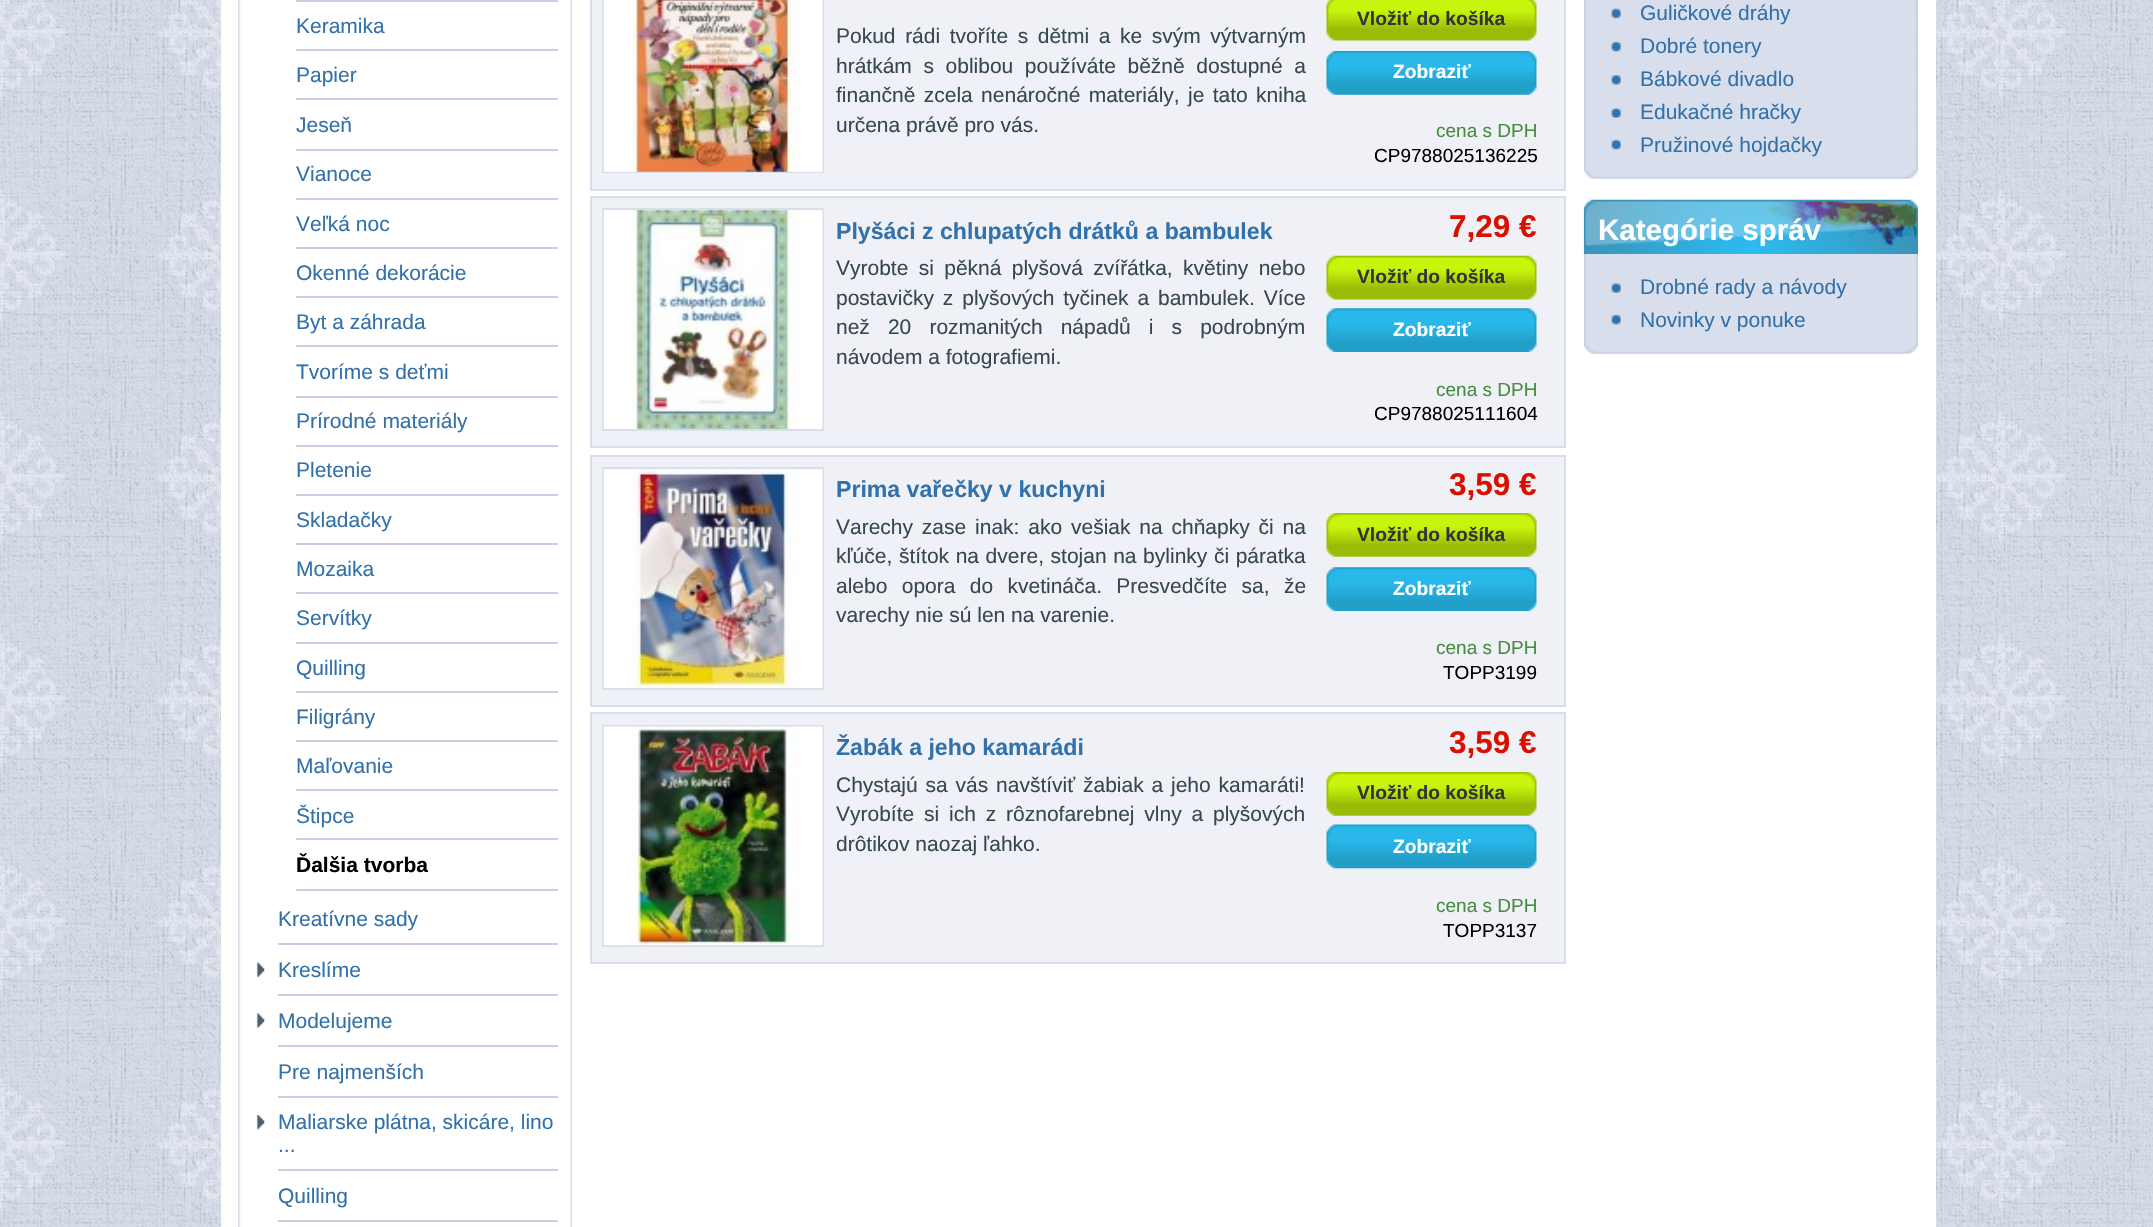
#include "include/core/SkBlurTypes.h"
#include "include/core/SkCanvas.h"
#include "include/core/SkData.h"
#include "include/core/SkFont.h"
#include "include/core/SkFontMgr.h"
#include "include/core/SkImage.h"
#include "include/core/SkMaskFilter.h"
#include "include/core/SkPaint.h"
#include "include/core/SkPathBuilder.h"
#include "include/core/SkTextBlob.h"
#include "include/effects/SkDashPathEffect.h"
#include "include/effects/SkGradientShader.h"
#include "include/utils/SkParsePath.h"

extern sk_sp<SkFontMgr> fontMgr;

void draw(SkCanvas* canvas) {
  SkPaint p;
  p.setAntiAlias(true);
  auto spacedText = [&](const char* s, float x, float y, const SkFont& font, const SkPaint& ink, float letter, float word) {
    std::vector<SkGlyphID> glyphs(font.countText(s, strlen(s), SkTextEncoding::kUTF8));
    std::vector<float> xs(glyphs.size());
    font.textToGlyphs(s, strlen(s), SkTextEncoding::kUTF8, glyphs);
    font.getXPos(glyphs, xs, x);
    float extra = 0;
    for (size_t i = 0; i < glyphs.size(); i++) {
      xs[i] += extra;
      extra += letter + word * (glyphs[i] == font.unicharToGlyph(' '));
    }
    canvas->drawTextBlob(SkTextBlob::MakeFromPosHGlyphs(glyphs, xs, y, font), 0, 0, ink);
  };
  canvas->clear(SK_ColorWHITE);
  canvas->drawImageRect(SkImages::DeferredFromEncodedData(SkData::MakeFromFileName("images/1.png")), SkRect::MakeLTRB(0, 0, 2153, 1227), SkSamplingOptions());
  p.setColor(SK_ColorWHITE);
  canvas->drawRect(SkRect::MakeLTRB(221, 0, 1936, 1227), p);
  canvas->drawImageRect(SkImages::DeferredFromEncodedData(SkData::MakeFromFileName("images/2.png")), SkRect::MakeLTRB(238, 0, 572, 1227), SkSamplingOptions());
  p.setColor(SkColorSetRGB(199, 207, 226));
  canvas->drawRect(SkRect::MakeLTRB(296, 0, 558, 2), p);
  canvas->drawRect(SkRect::MakeLTRB(296, 49, 558, 51), p);
  canvas->drawRect(SkRect::MakeLTRB(296, 98, 558, 100), p);
  canvas->drawRect(SkRect::MakeLTRB(296, 149, 558, 151), p);
  canvas->drawRect(SkRect::MakeLTRB(296, 198, 558, 200), p);
  canvas->drawRect(SkRect::MakeLTRB(296, 247, 558, 249), p);
  canvas->drawRect(SkRect::MakeLTRB(296, 296, 558, 298), p);
  canvas->drawRect(SkRect::MakeLTRB(296, 345, 558, 347), p);
  canvas->drawRect(SkRect::MakeLTRB(296, 396, 558, 398), p);
  canvas->drawRect(SkRect::MakeLTRB(296, 445, 558, 447), p);
  canvas->drawRect(SkRect::MakeLTRB(296, 494, 558, 496), p);
  canvas->drawRect(SkRect::MakeLTRB(296, 543, 558, 545), p);
  canvas->drawRect(SkRect::MakeLTRB(296, 592, 558, 594), p);
  canvas->drawRect(SkRect::MakeLTRB(296, 642, 558, 644), p);
  canvas->drawRect(SkRect::MakeLTRB(296, 691, 558, 693), p);
  canvas->drawRect(SkRect::MakeLTRB(296, 740, 558, 742), p);
  canvas->drawRect(SkRect::MakeLTRB(296, 789, 558, 791), p);
  canvas->drawRect(SkRect::MakeLTRB(296, 838, 558, 840), p);
  canvas->drawRect(SkRect::MakeLTRB(296, 889, 558, 891), p);
  canvas->drawRect(SkRect::MakeLTRB(278, 943, 558, 945), p);
  canvas->drawImageRect(SkImages::DeferredFromEncodedData(SkData::MakeFromFileName("images/3.png")), SkRect::MakeLTRB(256, 962, 265, 978), SkSamplingOptions());
  canvas->drawRect(SkRect::MakeLTRB(278, 994, 558, 996), p);
  canvas->drawImageRect(SkImages::DeferredFromEncodedData(SkData::MakeFromFileName("images/4.png")), SkRect::MakeLTRB(256, 1013, 265, 1028), SkSamplingOptions());
  canvas->drawRect(SkRect::MakeLTRB(278, 1045, 558, 1047), p);
  canvas->drawRect(SkRect::MakeLTRB(278, 1096, 558, 1098), p);
  canvas->drawImageRect(SkImages::DeferredFromEncodedData(SkData::MakeFromFileName("images/5.png")), SkRect::MakeLTRB(256, 1115, 265, 1130), SkSamplingOptions());
  canvas->drawRect(SkRect::MakeLTRB(278, 1169, 558, 1171), p);
  canvas->drawRect(SkRect::MakeLTRB(278, 1220, 558, 1222), p);
  p.setColor(SkColorSetRGB(239, 241, 246));
  canvas->drawRect(SkRect::MakeLTRB(591, -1, 1565, 190), p);
  p.setStyle(SkPaint::kStroke_Style);
  p.setStrokeWidth(2);
  p.setColor(SkColorSetRGB(216, 222, 236));
  canvas->drawRect(SkRect::MakeLTRB(591, -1, 1565, 190), p);
  canvas->drawRect(SkRect::MakeLTRB(603, -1, 823, 172), p);
  canvas->drawImageRect(SkImages::DeferredFromEncodedData(SkData::MakeFromFileName("images/6.png")), SkRect::MakeLTRB(603, 0, 823, 172), SkSamplingOptions());
  canvas->drawImageRect(SkImages::DeferredFromEncodedData(SkData::MakeFromFileName("images/7.png")), SkRect::MakeLTRB(1326, 0, 1537, 41), SkSamplingOptions());
  canvas->drawImageRect(SkImages::DeferredFromEncodedData(SkData::MakeFromFileName("images/8.png")), SkRect::MakeLTRB(1326, 51, 1537, 95), SkSamplingOptions());
  p.setStyle(SkPaint::kFill_Style);
  p.setColor(SkColorSetRGB(239, 241, 246));
  canvas->drawRect(SkRect::MakeLTRB(591, 197, 1565, 447), p);
  p.setStyle(SkPaint::kStroke_Style);
  p.setColor(SkColorSetRGB(216, 222, 236));
  canvas->drawRect(SkRect::MakeLTRB(591, 197, 1565, 447), p);
  canvas->drawRect(SkRect::MakeLTRB(603, 209, 823, 430), p);
  canvas->drawImageRect(SkImages::DeferredFromEncodedData(SkData::MakeFromFileName("images/9.png")), SkRect::MakeLTRB(603, 210, 823, 429), SkSamplingOptions());
  canvas->drawImageRect(SkImages::DeferredFromEncodedData(SkData::MakeFromFileName("images/10.png")), SkRect::MakeLTRB(1326, 255, 1537, 300), SkSamplingOptions());
  canvas->drawImageRect(SkImages::DeferredFromEncodedData(SkData::MakeFromFileName("images/11.png")), SkRect::MakeLTRB(1326, 308, 1537, 352), SkSamplingOptions());
  p.setStyle(SkPaint::kFill_Style);
  p.setColor(SkColorSetRGB(239, 241, 246));
  canvas->drawRect(SkRect::MakeLTRB(591, 456, 1565, 706), p);
  p.setStyle(SkPaint::kStroke_Style);
  p.setColor(SkColorSetRGB(216, 222, 236));
  canvas->drawRect(SkRect::MakeLTRB(591, 456, 1565, 706), p);
  canvas->drawRect(SkRect::MakeLTRB(603, 468, 823, 689), p);
  canvas->drawImageRect(SkImages::DeferredFromEncodedData(SkData::MakeFromFileName("images/12.png")), SkRect::MakeLTRB(603, 469, 823, 688), SkSamplingOptions());
  canvas->drawImageRect(SkImages::DeferredFromEncodedData(SkData::MakeFromFileName("images/13.png")), SkRect::MakeLTRB(1326, 513, 1537, 557), SkSamplingOptions());
  canvas->drawImageRect(SkImages::DeferredFromEncodedData(SkData::MakeFromFileName("images/14.png")), SkRect::MakeLTRB(1326, 567, 1537, 611), SkSamplingOptions());
  p.setStyle(SkPaint::kFill_Style);
  p.setColor(SkColorSetRGB(239, 241, 246));
  canvas->drawRect(SkRect::MakeLTRB(591, 713, 1565, 963), p);
  p.setStyle(SkPaint::kStroke_Style);
  p.setColor(SkColorSetRGB(216, 222, 236));
  canvas->drawRect(SkRect::MakeLTRB(591, 713, 1565, 963), p);
  canvas->drawRect(SkRect::MakeLTRB(603, 726, 823, 946), p);
  canvas->drawImageRect(SkImages::DeferredFromEncodedData(SkData::MakeFromFileName("images/15.png")), SkRect::MakeLTRB(603, 726, 823, 946), SkSamplingOptions());
  canvas->drawImageRect(SkImages::DeferredFromEncodedData(SkData::MakeFromFileName("images/13.png")), SkRect::MakeLTRB(1326, 772, 1537, 816), SkSamplingOptions());
  canvas->drawImageRect(SkImages::DeferredFromEncodedData(SkData::MakeFromFileName("images/16.png")), SkRect::MakeLTRB(1326, 824, 1537, 869), SkSamplingOptions());
  canvas->drawImageRect(SkImages::DeferredFromEncodedData(SkData::MakeFromFileName("images/17.png")), SkRect::MakeLTRB(1584, 170, 1918, 179), SkSamplingOptions());
  canvas->drawImageRect(SkImages::DeferredFromEncodedData(SkData::MakeFromFileName("images/18.png")), SkRect::MakeLTRB(1584, 0, 1918, 170), SkSamplingOptions());
  canvas->drawImageRect(SkImages::DeferredFromEncodedData(SkData::MakeFromFileName("images/19.png")), SkRect::MakeLTRB(1611, 8, 1621, 19), SkSamplingOptions());
  canvas->drawImageRect(SkImages::DeferredFromEncodedData(SkData::MakeFromFileName("images/20.png")), SkRect::MakeLTRB(1611, 41, 1621, 52), SkSamplingOptions());
  canvas->drawImageRect(SkImages::DeferredFromEncodedData(SkData::MakeFromFileName("images/21.png")), SkRect::MakeLTRB(1611, 75, 1621, 85), SkSamplingOptions());
  canvas->drawImageRect(SkImages::DeferredFromEncodedData(SkData::MakeFromFileName("images/22.png")), SkRect::MakeLTRB(1611, 108, 1621, 118), SkSamplingOptions());
  canvas->drawImageRect(SkImages::DeferredFromEncodedData(SkData::MakeFromFileName("images/20.png")), SkRect::MakeLTRB(1611, 139, 1621, 150), SkSamplingOptions());
  canvas->drawImageRect(SkImages::DeferredFromEncodedData(SkData::MakeFromFileName("images/17.png")), SkRect::MakeLTRB(1584, 345, 1918, 354), SkSamplingOptions());
  canvas->drawImageRect(SkImages::DeferredFromEncodedData(SkData::MakeFromFileName("images/23.png")), SkRect::MakeLTRB(1583, 199, 1918, 254), SkSamplingOptions());
  canvas->drawImageRect(SkImages::DeferredFromEncodedData(SkData::MakeFromFileName("images/24.png")), SkRect::MakeLTRB(1584, 254, 1918, 345), SkSamplingOptions());
  canvas->drawImageRect(SkImages::DeferredFromEncodedData(SkData::MakeFromFileName("images/22.png")), SkRect::MakeLTRB(1611, 283, 1621, 293), SkSamplingOptions());
  canvas->drawImageRect(SkImages::DeferredFromEncodedData(SkData::MakeFromFileName("images/20.png")), SkRect::MakeLTRB(1611, 314, 1621, 325), SkSamplingOptions());
  SkFont font1(fontMgr->matchFamilyStyle("Liberation Sans", SkFontStyle::Normal()), 21);
  font1.setSubpixel(true);
  p.setStyle(SkPaint::kFill_Style);
  p.setColor(SkColorSetRGB(51, 113, 170));
  canvas->drawString("Keramika", 296, 33, font1, p);
  canvas->drawString("Papier", 296, 82, font1, p);
  canvas->drawString("Jeseň", 296, 132, font1, p);
  canvas->drawString("Vianoce", 296, 181, font1, p);
  canvas->drawString("Veľká noc", 296, 231, font1, p);
  canvas->drawString("Okenné dekorácie", 296, 280, font1, p);
  canvas->drawString("Byt a záhrada", 296, 329, font1, p);
  canvas->drawString("Tvoríme s deťmi", 296, 379, font1, p);
  canvas->drawString("Prírodné materiály", 296, 428, font1, p);
  canvas->drawString("Pletenie", 296, 477, font1, p);
  canvas->drawString("Skladačky", 296, 527, font1, p);
  canvas->drawString("Mozaika", 296, 576, font1, p);
  canvas->drawString("Servítky", 296, 625, font1, p);
  canvas->drawString("Quilling", 296, 675, font1, p);
  canvas->drawString("Filigrány", 296, 724, font1, p);
  canvas->drawString("Maľovanie", 296, 773, font1, p);
  canvas->drawString("Štipce", 296, 823, font1, p);
  SkFont font2(fontMgr->matchFamilyStyle("Liberation Sans", SkFontStyle::Bold()), 21);
  font2.setSubpixel(true);
  p.setColor(SK_ColorBLACK);
  canvas->drawString("Ďalšia tvorba", 296, 872, font2, p);
  p.setColor(SkColorSetRGB(51, 113, 170));
  canvas->drawString("Kreatívne sady", 278, 926, font1, p);
  canvas->drawString("Kreslíme", 278, 977, font1, p);
  canvas->drawString("Modelujeme", 278, 1028, font1, p);
  canvas->drawString("Pre najmenších", 278, 1079, font1, p);
  canvas->drawString("Maliarske plátna, skicáre, lino", 278, 1129, font1, p);
  canvas->drawString("...", 278, 1152, font1, p);
  canvas->drawString("Quilling", 278, 1203, font1, p);
  p.setColor(SkColorSetRGB(55, 72, 83));
  spacedText("Pokud rádi tvoříte s dětmi a ke svým výtvarným", 836, 43, font1, p, 0, 3.75f);
  spacedText("hrátkám s oblibou používáte běžně dostupné a", 836, 73, font1, p, 0, 5.75f);
  spacedText("finančně zcela nenáročné materiály, je tato kniha", 836, 102, font1, p, 0, 2.5f);
  canvas->drawString("určena právě pro vás.", 836, 132, font1, p);
  SkFont font3(fontMgr->matchFamilyStyle("Liberation Sans", SkFontStyle::Bold()), 19.25f);
  font3.setSubpixel(true);
  p.setColor(SkColorSetRGB(51, 51, 51));
  canvas->drawString("Vložiť do košíka", 1357, 25, font3, p);
  p.setColor(SK_ColorWHITE);
  canvas->drawString("Zobraziť", 1393, 78, font3, p);
  SkFont font4(fontMgr->matchFamilyStyle("Liberation Sans", SkFontStyle::Normal()), 19);
  font4.setSubpixel(true);
  p.setColor(SkColorSetRGB(72, 140, 64));
  canvas->drawString("cena s DPH", 1436, 137, font4, p);
  p.setColor(SK_ColorBLACK);
  canvas->drawString("CP9788025136225", 1374, 162, font4, p);
  SkFont font5(fontMgr->matchFamilyStyle("Liberation Sans", SkFontStyle::Bold()), 23.1f);
  font5.setSubpixel(true);
  p.setColor(SkColorSetRGB(51, 113, 170));
  canvas->drawString("Plyšáci z chlupatých drátků a bambulek", 836, 239, font5, p);
  p.setColor(SkColorSetRGB(55, 72, 83));
  spacedText("Vyrobte si pěkná plyšová zvířátka, květiny nebo", 836, 275, font1, p, 0, 4.5f);
  spacedText("postavičky z plyšových tyčinek a bambulek. Více", 836, 305, font1, p, 0, 3);
  spacedText("než 20 rozmanitých nápadů i s podrobným", 836, 334, font1, p, 0, 12.25f);
  canvas->drawString("návodem a fotografiemi.", 836, 364, font1, p);
  SkFont font6(fontMgr->matchFamilyStyle("Liberation Sans", SkFontStyle::Bold()), 31.5f);
  font6.setSubpixel(true);
  p.setColor(SkColorSetRGB(218, 15, 0));
  canvas->drawString("7,29 €", 1449, 237, font6, p);
  p.setColor(SkColorSetRGB(51, 51, 51));
  canvas->drawString("Vložiť do košíka", 1357, 283, font3, p);
  p.setColor(SK_ColorWHITE);
  canvas->drawString("Zobraziť", 1393, 336, font3, p);
  p.setColor(SkColorSetRGB(72, 140, 64));
  canvas->drawString("cena s DPH", 1436, 396, font4, p);
  p.setColor(SK_ColorBLACK);
  canvas->drawString("CP9788025111604", 1374, 420, font4, p);
  p.setColor(SkColorSetRGB(51, 113, 170));
  canvas->drawString("Prima vařečky v kuchyni", 836, 497, font5, p);
  p.setColor(SkColorSetRGB(55, 72, 83));
  spacedText("Varechy zase inak: ako vešiak na chňapky či na", 836, 534, font1, p, 0, 3);
  spacedText("kľúče, štítok na dvere, stojan na bylinky či páratka", 836, 563, font1, p, 0, 0.75f);
  spacedText("alebo opora do kvetináča. Presvedčíte sa, že", 836, 593, font1, p, 0, 8.5f);
  canvas->drawString("varechy nie sú len na varenie.", 836, 622, font1, p);
  p.setColor(SkColorSetRGB(218, 15, 0));
  canvas->drawString("3,59 €", 1449, 495, font6, p);
  p.setColor(SkColorSetRGB(51, 51, 51));
  canvas->drawString("Vložiť do košíka", 1357, 541, font3, p);
  p.setColor(SK_ColorWHITE);
  canvas->drawString("Zobraziť", 1393, 595, font3, p);
  p.setColor(SkColorSetRGB(72, 140, 64));
  canvas->drawString("cena s DPH", 1436, 654, font4, p);
  p.setColor(SK_ColorBLACK);
  canvas->drawString("TOPP3199", 1443, 679, font4, p);
  p.setColor(SkColorSetRGB(51, 113, 170));
  canvas->drawString("Žabák a jeho kamarádi", 836, 755, font5, p);
  p.setColor(SkColorSetRGB(55, 72, 83));
  spacedText("Chystajú sa vás navštíviť žabiak a jeho kamaráti!", 836, 792, font1, p, 0, 2);
  spacedText("Vyrobíte si ich z rôznofarebnej vlny a plyšových", 836, 821, font1, p, 0, 4);
  canvas->drawString("drôtikov naozaj ľahko.", 836, 851, font1, p);
  p.setColor(SkColorSetRGB(218, 15, 0));
  canvas->drawString("3,59 €", 1449, 753, font6, p);
  p.setColor(SkColorSetRGB(51, 51, 51));
  canvas->drawString("Vložiť do košíka", 1357, 799, font3, p);
  p.setColor(SK_ColorWHITE);
  canvas->drawString("Zobraziť", 1393, 853, font3, p);
  p.setColor(SkColorSetRGB(72, 140, 64));
  canvas->drawString("cena s DPH", 1436, 912, font4, p);
  p.setColor(SK_ColorBLACK);
  canvas->drawString("TOPP3137", 1443, 937, font4, p);
  p.setColor(SkColorSetRGB(51, 113, 170));
  canvas->drawString("Guličkové dráhy", 1640, 20, font1, p);
  canvas->drawString("Dobré tonery", 1640, 53, font1, p);
  canvas->drawString("Bábkové divadlo", 1640, 86, font1, p);
  canvas->drawString("Edukačné hračky", 1640, 119, font1, p);
  canvas->drawString("Pružinové hojdačky", 1640, 152, font1, p);
  SkFont font7(fontMgr->matchFamilyStyle("Liberation Sans", SkFontStyle::Bold()), 29.5f);
  font7.setSubpixel(true);
  p.setColor(SK_ColorWHITE);
  canvas->drawString("Kategórie správ", 1598, 240, font7, p);
  p.setColor(SkColorSetRGB(51, 113, 170));
  canvas->drawString("Drobné rady a návody", 1640, 294, font1, p);
  canvas->drawString("Novinky v ponuke", 1640, 327, font1, p);
}
